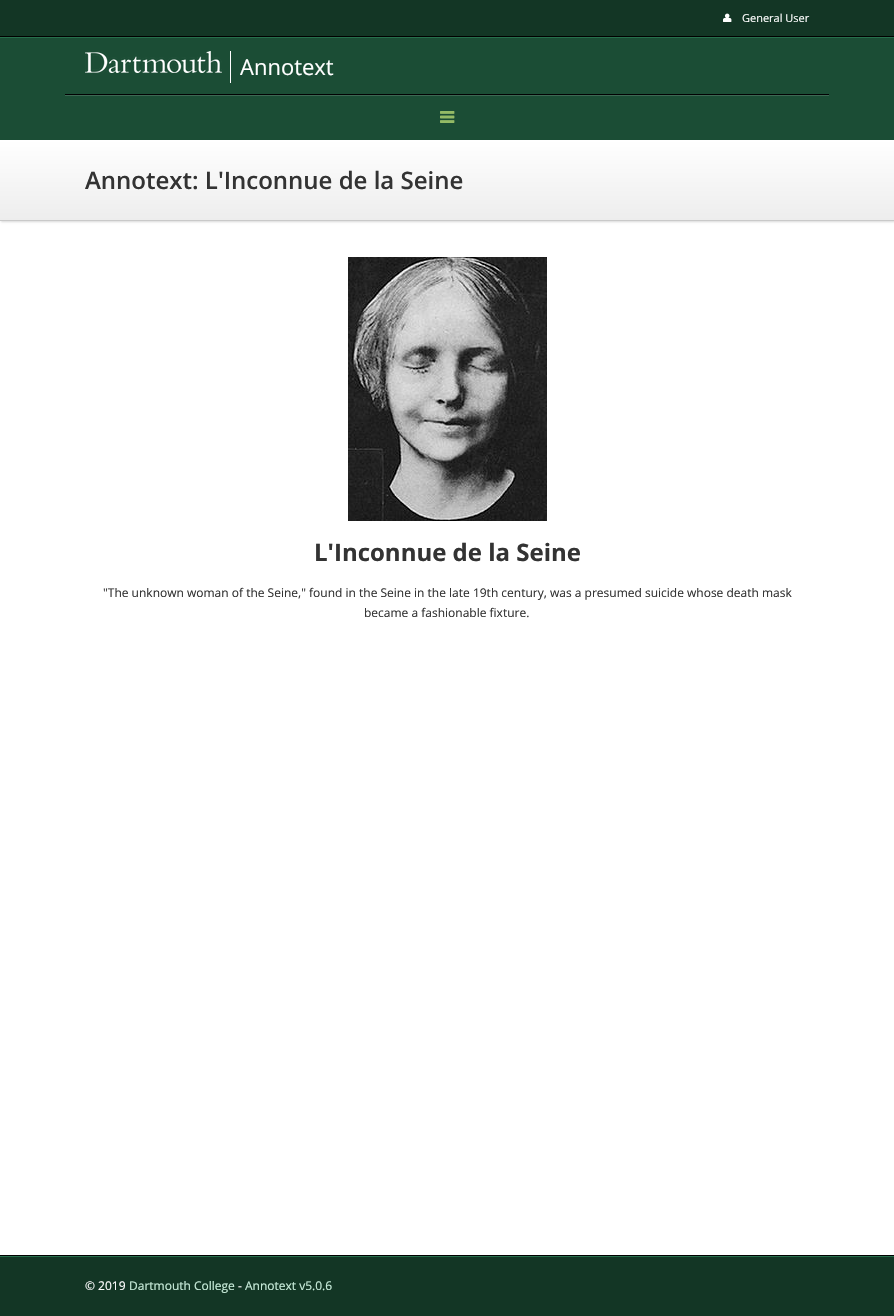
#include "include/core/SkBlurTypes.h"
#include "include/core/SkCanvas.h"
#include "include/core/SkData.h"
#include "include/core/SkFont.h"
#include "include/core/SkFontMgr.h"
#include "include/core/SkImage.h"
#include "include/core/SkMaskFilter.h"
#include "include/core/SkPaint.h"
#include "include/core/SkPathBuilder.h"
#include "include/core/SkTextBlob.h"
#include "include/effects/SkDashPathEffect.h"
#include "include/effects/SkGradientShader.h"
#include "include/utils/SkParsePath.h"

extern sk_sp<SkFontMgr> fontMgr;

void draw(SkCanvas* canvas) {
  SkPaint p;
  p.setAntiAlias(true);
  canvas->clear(SK_ColorWHITE);
  p.setColor(SkColorSetRGB(19, 54, 37));
  canvas->drawRect(SkRect::MakeLTRB(0, 0, 894, 36), p);
  p.setColor(SK_ColorBLACK);
  canvas->drawRect(SkRect::MakeLTRB(0, 36, 894, 37), p);
  canvas->drawImageRect(SkImages::DeferredFromEncodedData(SkData::MakeFromFileName("images/1.png")), SkRect::MakeLTRB(723, 13, 732, 22), SkSamplingOptions());
  p.setColor(SkColorSetARGB(38, 0, 0, 0));
  p.setMaskFilter(SkMaskFilter::MakeBlur(kNormal_SkBlurStyle, 1));
  canvas->drawRect(SkRect::MakeLTRB(1, 141, 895, 222), p);
  p.setMaskFilter(nullptr);
  p.setColor(SkColorSetRGB(27, 77, 53));
  canvas->drawRect(SkRect::MakeLTRB(0, 38, 894, 140), p);
  p.setColor(SkColorSetRGB(39, 111, 76));
  canvas->drawRect(SkRect::MakeLTRB(0, 37, 894, 38), p);
  p.setColor(SK_ColorWHITE);
  canvas->drawRect(SkRect::MakeLTRB(230, 51, 231, 83), p);
  canvas->drawImageRect(SkImages::DeferredFromEncodedData(SkData::MakeFromFileName("images/2.png")), SkRect::MakeLTRB(85, 51, 222, 73), SkSamplingOptions());
  p.setColor(SkColorSetRGB(61, 104, 83));
  canvas->drawRect(SkRect::MakeLTRB(65, 95, 829, 96), p);
  p.setColor(SkColorSetRGB(1, 2, 3));
  canvas->drawRect(SkRect::MakeLTRB(65, 94, 829, 95), p);
  canvas->drawImageRect(SkImages::DeferredFromEncodedData(SkData::MakeFromFileName("images/3.png")), SkRect::MakeLTRB(440, 111, 455, 123), SkSamplingOptions());
  {
    const SkColor colors[] = {SK_ColorWHITE, SkColorSetRGB(237, 237, 237)};
    const float stops[] = {0, 1};
    const SkPoint ends[] = {{447, 140}, {447, 220}};
    p.setShader(SkGradientShader::MakeLinear(ends, colors, stops, 2, SkTileMode::kClamp));
    p.setAlpha(255);
  }
  canvas->drawRect(SkRect::MakeLTRB(0, 140, 894, 220), p);
  p.setShader(nullptr);
  p.setColor(SkColorSetRGB(201, 201, 201));
  canvas->drawRect(SkRect::MakeLTRB(0, 220, 894, 221), p);
  canvas->drawImageRect(SkImages::DeferredFromEncodedData(SkData::MakeFromFileName("images/4.png")), SkRect::MakeLTRB(348, 257, 547, 521), SkSamplingOptions());
  p.setColor(SkColorSetRGB(19, 54, 37));
  canvas->drawRect(SkRect::MakeLTRB(0, 1257, 894, 1316), p);
  p.setColor(SkColorSetRGB(39, 111, 76));
  canvas->drawRect(SkRect::MakeLTRB(0, 1256, 894, 1257), p);
  p.setColor(SK_ColorBLACK);
  canvas->drawRect(SkRect::MakeLTRB(0, 1255, 894, 1256), p);
  SkFont font1(fontMgr->matchFamilyStyle("Open Sans", SkFontStyle::Normal()), 11);
  font1.setSubpixel(true);
  p.setColor(SK_ColorWHITE);
  canvas->drawString("General User", 742, 22, font1, p);
  SkFont font2(fontMgr->matchFamilyStyle("Open Sans", SkFontStyle::Normal()), 22);
  font2.setSubpixel(true);
  canvas->drawString("Annotext", 240, 75, font2, p);
  SkFont font3(fontMgr->matchFamilyStyle("Open Sans", SkFontStyle(600, SkFontStyle::kNormal_Width, SkFontStyle::kUpright_Slant)), 24);
  font3.setSubpixel(true);
  p.setColor(SkColorSetRGB(51, 51, 51));
  canvas->drawString("Annotext: L'Inconnue de la Seine", 85, 189, font3, p);
  SkFont font4(fontMgr->matchFamilyStyle("Open Sans", SkFontStyle::Bold()), 24);
  font4.setSubpixel(true);
  canvas->drawString("L'Inconnue de la Seine", 314, 561, font4, p);
  SkFont font5(fontMgr->matchFamilyStyle("Open Sans", SkFontStyle::Normal()), 12);
  font5.setSubpixel(true);
  canvas->drawString("\"The unknown woman of the Seine,\" found in the Seine in the late 19th century, was a presumed suicide whose death mask", 103, 597, font5, p);
  canvas->drawString("became a fashionable fixture.", 364, 617, font5, p);
  p.setColor(SK_ColorWHITE);
  canvas->drawString("© 2019", 85, 1290, font5, p);
  p.setColor(SkColorSetRGB(200, 236, 218));
  canvas->drawString("Dartmouth College", 129, 1290, font5, p);
  p.setColor(SK_ColorWHITE);
  canvas->drawString("-", 238, 1290, font5, p);
  p.setColor(SkColorSetRGB(200, 236, 218));
  canvas->drawString("Annotext v5.0.6", 245, 1290, font5, p);
}
